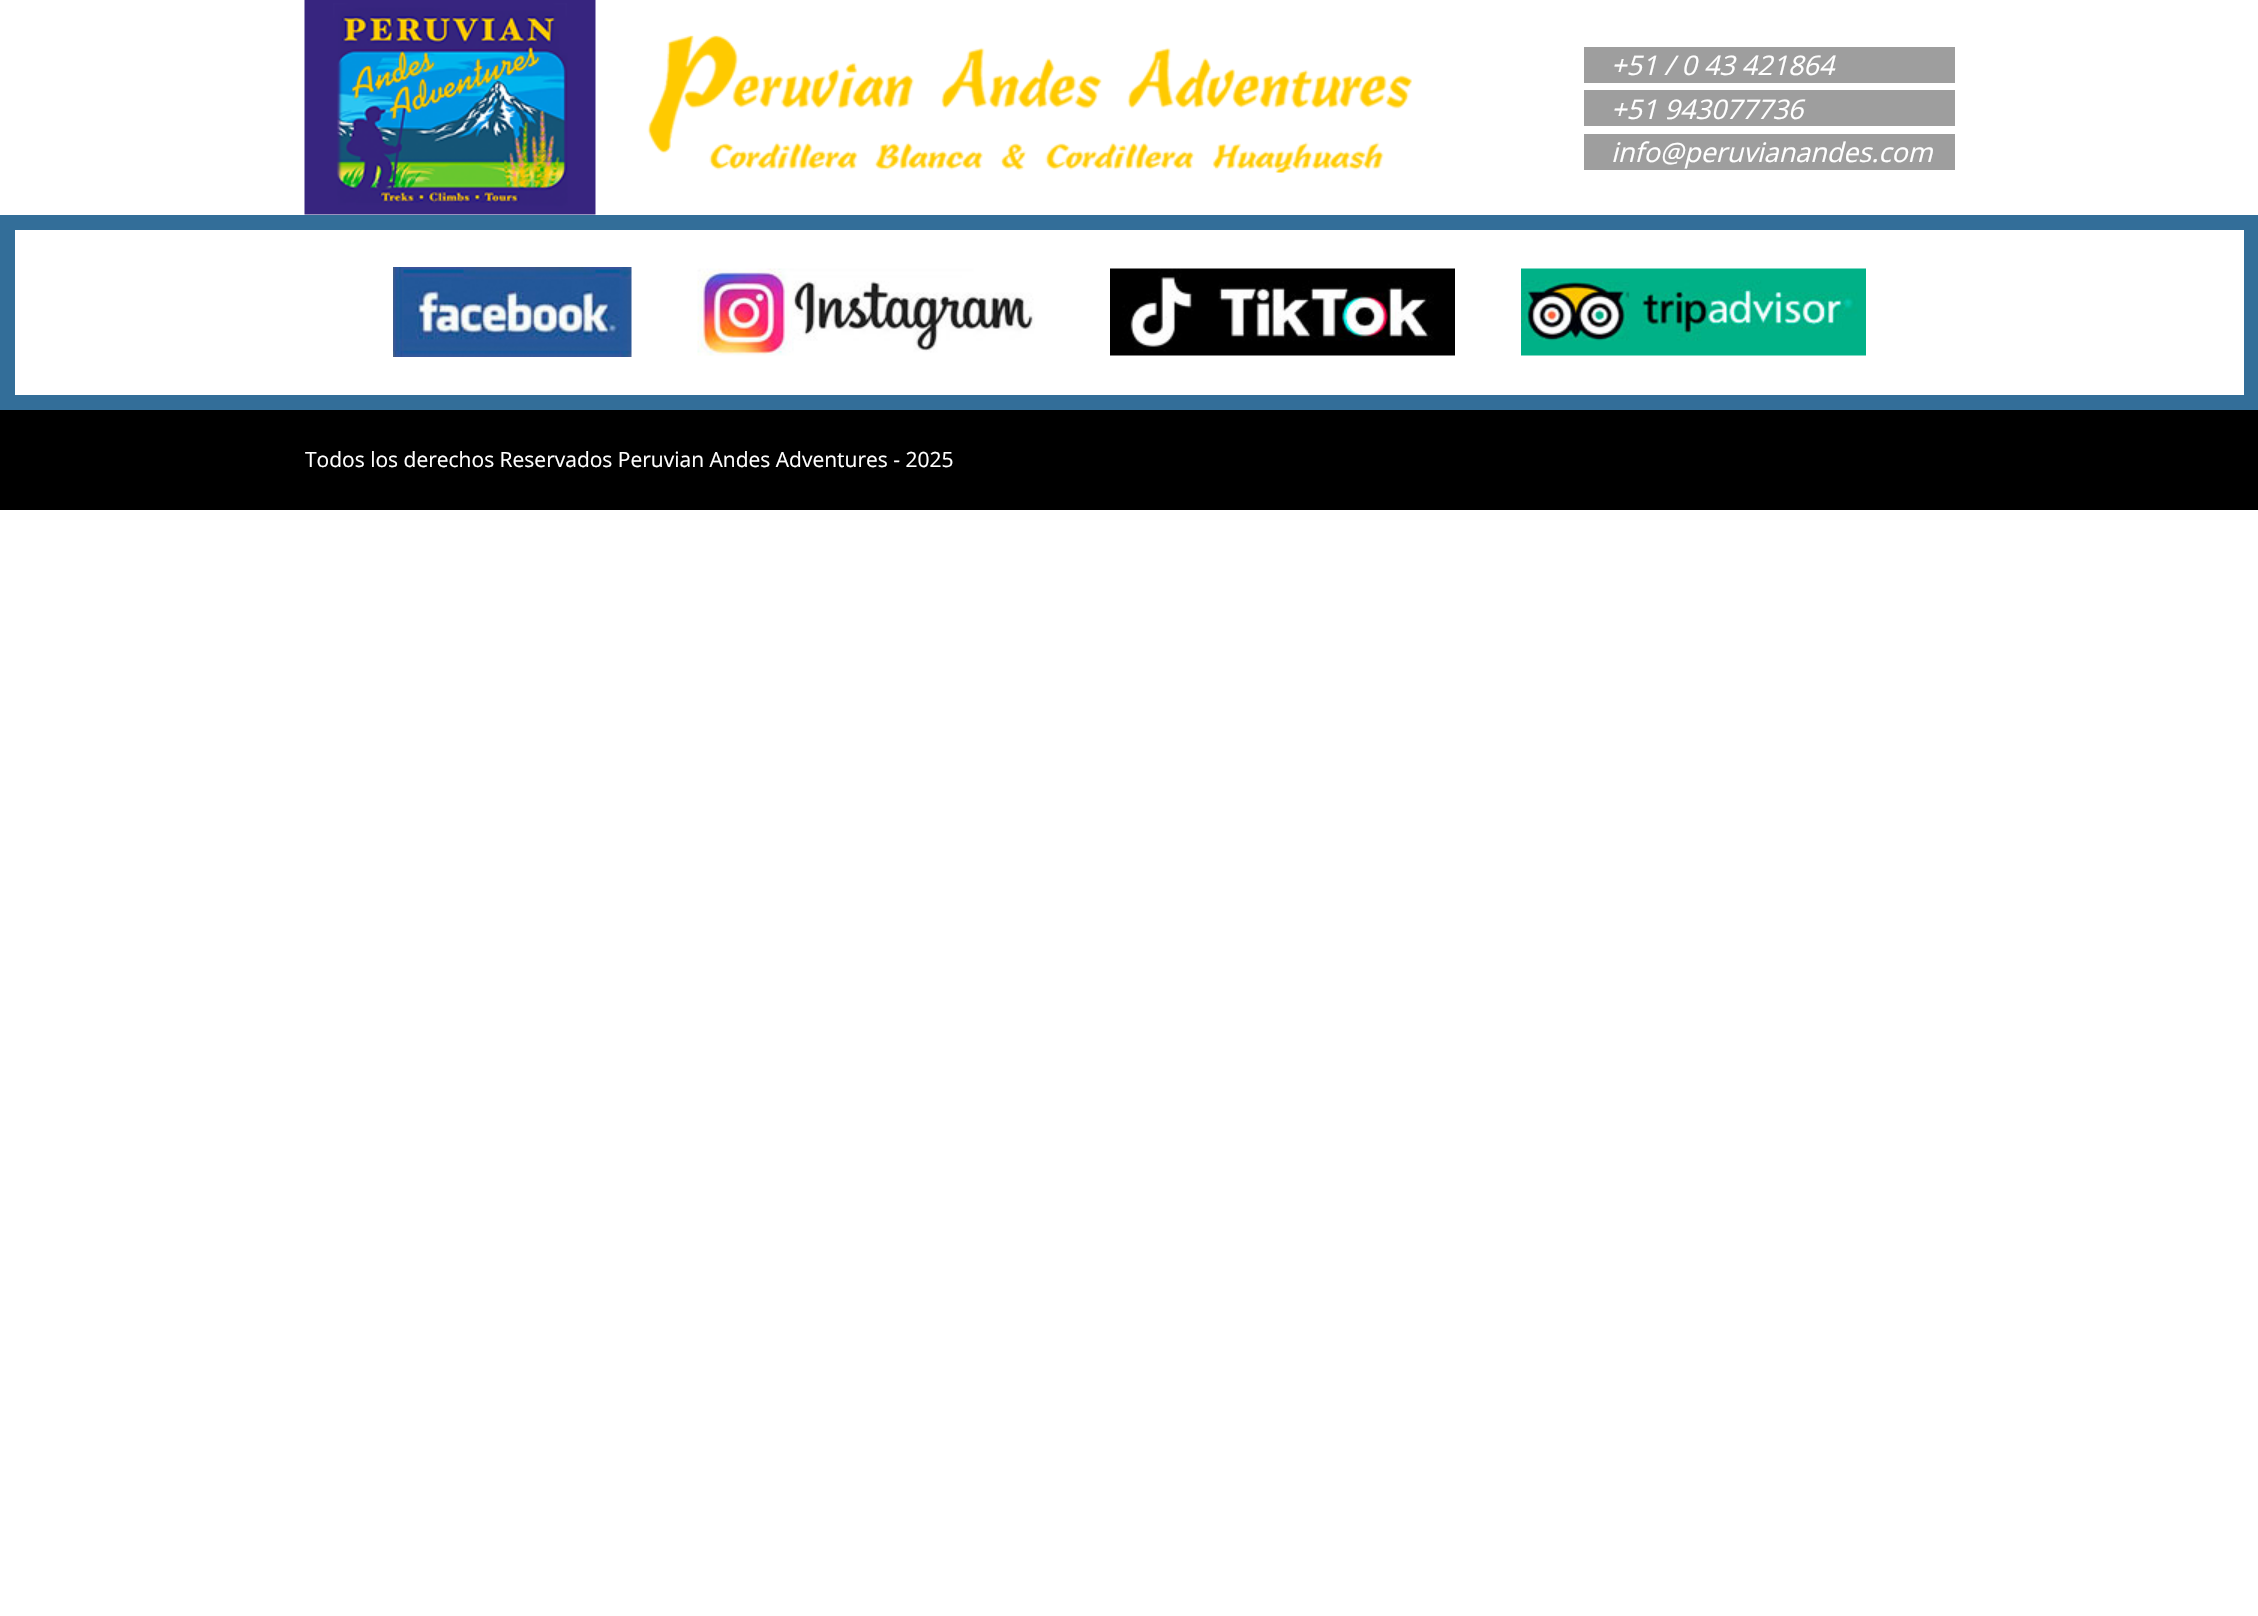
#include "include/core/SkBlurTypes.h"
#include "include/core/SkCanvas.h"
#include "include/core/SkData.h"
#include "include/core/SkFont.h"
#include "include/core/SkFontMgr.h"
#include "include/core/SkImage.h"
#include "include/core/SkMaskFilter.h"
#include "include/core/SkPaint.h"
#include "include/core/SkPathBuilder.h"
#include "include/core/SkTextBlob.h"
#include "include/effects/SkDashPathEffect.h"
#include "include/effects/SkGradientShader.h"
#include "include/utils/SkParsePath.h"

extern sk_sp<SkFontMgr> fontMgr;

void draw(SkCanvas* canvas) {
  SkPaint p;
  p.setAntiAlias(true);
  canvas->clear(SK_ColorWHITE);
  canvas->drawImageRect(SkImages::DeferredFromEncodedData(SkData::MakeFromFileName("images/1.png")), SkRect::MakeLTRB(304, 0, 1412, 215), SkSamplingOptions());
  p.setColor(SkColorSetRGB(158, 158, 158));
  canvas->drawRect(SkRect::MakeLTRB(1584, 47, 1955, 83), p);
  canvas->drawRect(SkRect::MakeLTRB(1584, 90, 1955, 126), p);
  canvas->drawRect(SkRect::MakeLTRB(1584, 134, 1955, 170), p);
  p.setColor(SkColorSetRGB(51, 110, 153));
  canvas->drawRect(SkRect::MakeLTRB(0, 215, 2258, 410), p);
  p.setColor(SK_ColorWHITE);
  canvas->drawRect(SkRect::MakeLTRB(15, 230, 2244, 395), p);
  canvas->drawImageRect(SkImages::DeferredFromEncodedData(SkData::MakeFromFileName("images/2.png")), SkRect::MakeLTRB(393, 267, 632, 357), SkSamplingOptions());
  canvas->drawImageRect(SkImages::DeferredFromEncodedData(SkData::MakeFromFileName("images/3.png")), SkRect::MakeLTRB(697, 268, 1035, 356), SkSamplingOptions());
  canvas->drawImageRect(SkImages::DeferredFromEncodedData(SkData::MakeFromFileName("images/4.png")), SkRect::MakeLTRB(1110, 268, 1455, 356), SkSamplingOptions());
  canvas->drawImageRect(SkImages::DeferredFromEncodedData(SkData::MakeFromFileName("images/5.png")), SkRect::MakeLTRB(1521, 268, 1866, 356), SkSamplingOptions());
  p.setColor(SK_ColorBLACK);
  canvas->drawRect(SkRect::MakeLTRB(0, 410, 2258, 510), p);
  SkFont font1(fontMgr->matchFamilyStyle("Open Sans", SkFontStyle::Italic()), 27);
  font1.setSubpixel(true);
  p.setColor(SK_ColorWHITE);
  canvas->drawString("+51 / 0 43 421864", 1611, 75, font1, p);
  canvas->drawString("+51 943077736", 1611, 119, font1, p);
  canvas->drawString("info@peruvianandes.com", 1611, 162, font1, p);
  SkFont font2(fontMgr->matchFamilyStyle("Open Sans", SkFontStyle::Normal()), 21);
  font2.setSubpixel(true);
  canvas->drawString("Todos los derechos Reservados Peruvian Andes Adventures - 2025", 305, 467, font2, p);
}
